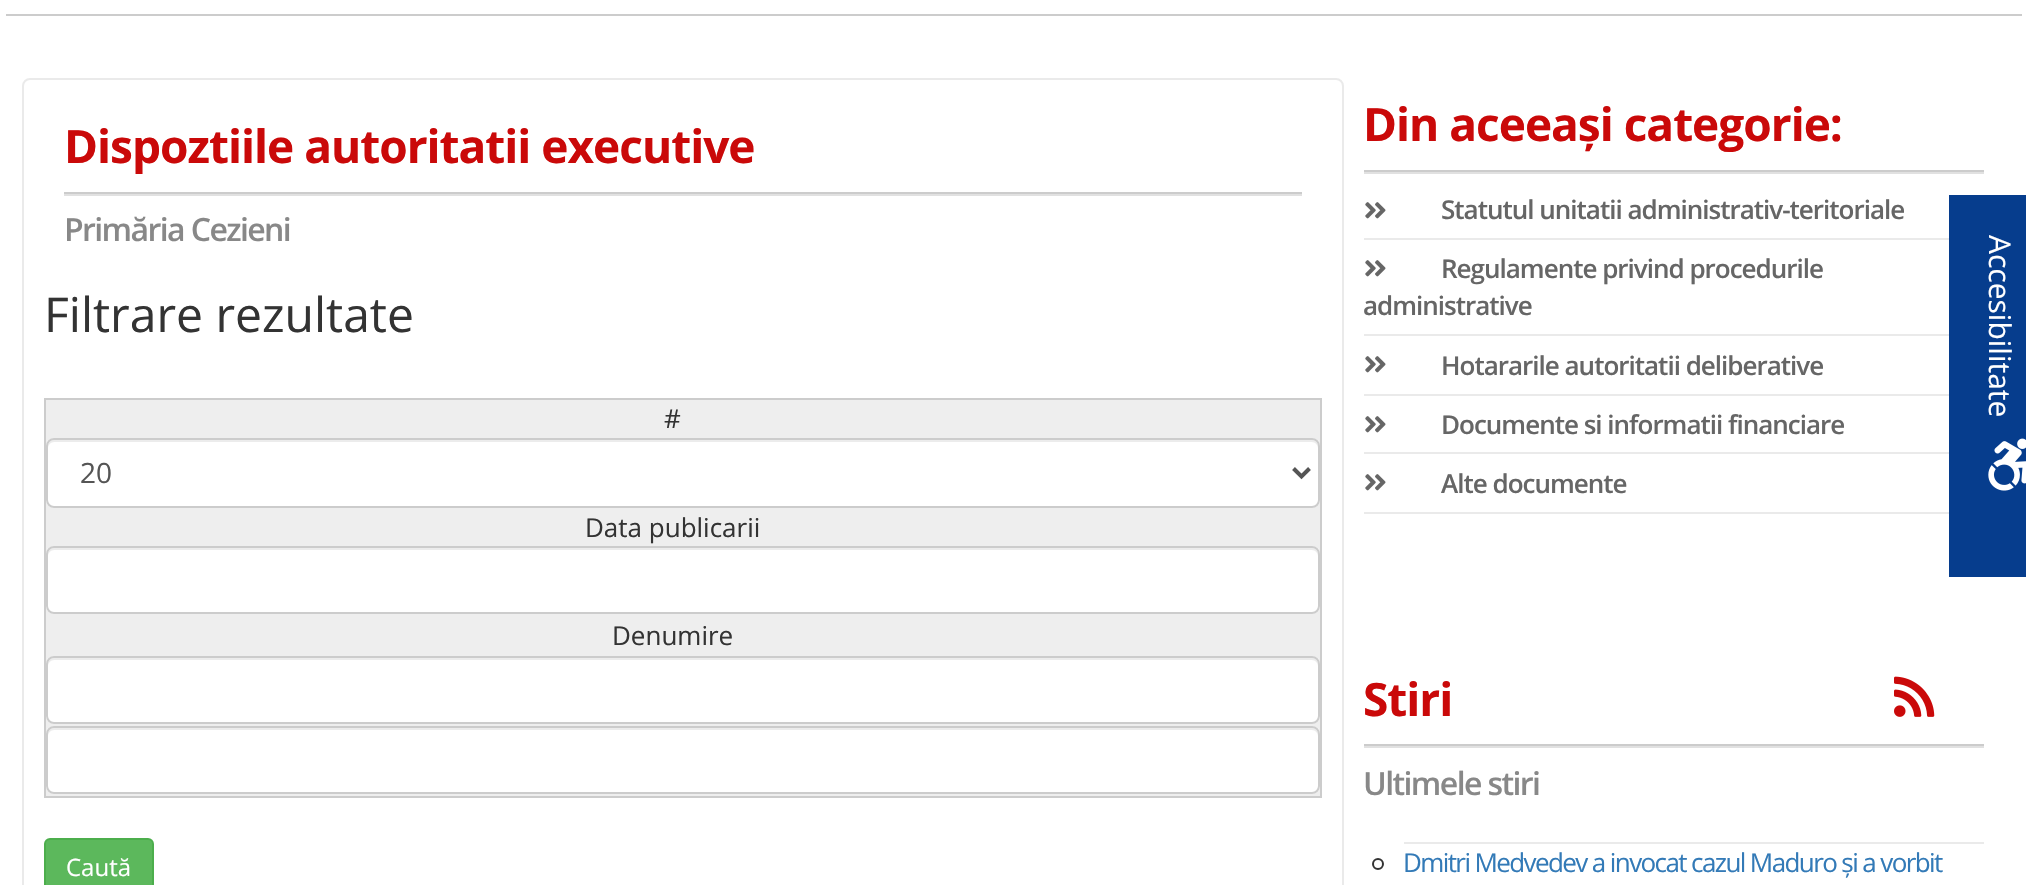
#include "include/core/SkBlurTypes.h"
#include "include/core/SkCanvas.h"
#include "include/core/SkData.h"
#include "include/core/SkFont.h"
#include "include/core/SkFontMgr.h"
#include "include/core/SkImage.h"
#include "include/core/SkMaskFilter.h"
#include "include/core/SkPaint.h"
#include "include/core/SkPathBuilder.h"
#include "include/core/SkTextBlob.h"
#include "include/effects/SkDashPathEffect.h"
#include "include/effects/SkGradientShader.h"
#include "include/utils/SkParsePath.h"

extern sk_sp<SkFontMgr> fontMgr;

void draw(SkCanvas* canvas) {
  SkPaint p;
  p.setAntiAlias(true);
  auto spacedText = [&](const char* s, float x, float y, const SkFont& font, const SkPaint& ink, float letter, float word) {
    std::vector<SkGlyphID> glyphs(font.countText(s, strlen(s), SkTextEncoding::kUTF8));
    std::vector<float> xs(glyphs.size());
    font.textToGlyphs(s, strlen(s), SkTextEncoding::kUTF8, glyphs);
    font.getXPos(glyphs, xs, x);
    float extra = 0;
    for (size_t i = 0; i < glyphs.size(); i++) {
      xs[i] += extra;
      extra += letter + word * (glyphs[i] == font.unicharToGlyph(' '));
    }
    canvas->drawTextBlob(SkTextBlob::MakeFromPosHGlyphs(glyphs, xs, y, font), 0, 0, ink);
  };
  canvas->clear(SK_ColorWHITE);
  p.setColor(SkColorSetRGB(204, 204, 204));
  canvas->drawRect(SkRect::MakeLTRB(6, 14, 2022, 16), p);
  p.setStyle(SkPaint::kStroke_Style);
  p.setStrokeWidth(2);
  p.setColor(SkColorSetRGB(234, 234, 234));
  canvas->drawRoundRect(SkRect::MakeLTRB(23, 79, 1343, 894), 7, 7, p);
  p.setStyle(SkPaint::kFill_Style);
  p.setColor(SkColorSetRGB(225, 225, 225));
  canvas->drawRect(SkRect::MakeLTRB(64, 194, 1302, 196), p);
  p.setColor(SkColorSetRGB(204, 204, 204));
  canvas->drawRect(SkRect::MakeLTRB(64, 192, 1302, 194), p);
  p.setColor(SkColorSetRGB(238, 238, 238));
  canvas->drawRect(SkRect::MakeLTRB(45, 399, 1321, 797), p);
  p.setStyle(SkPaint::kStroke_Style);
  p.setColor(SkColorSetRGB(204, 204, 204));
  canvas->drawRect(SkRect::MakeLTRB(45, 399, 1321, 797), p);
  p.setStyle(SkPaint::kFill_Style);
  p.setColor(SK_ColorWHITE);
  canvas->drawRoundRect(SkRect::MakeLTRB(46, 438, 1320, 508), 8, 8, p);
  p.setColor(SkColorSetRGB(236, 236, 236));
  canvas->drawPath(SkPathBuilder().moveTo(54, 442).lineTo(1312, 442).cubicTo(1315, 442, 1318, 445, 1318, 448).lineTo(1318, 446).cubicTo(1318, 443, 1315, 440, 1312, 440).lineTo(54, 440).cubicTo(51, 440, 48, 443, 48, 446).lineTo(48, 448).cubicTo(48, 445, 51, 442, 54, 442).close().detach(), p);
  p.setStyle(SkPaint::kStroke_Style);
  p.setColor(SkColorSetRGB(204, 204, 204));
  canvas->drawRoundRect(SkRect::MakeLTRB(47, 439, 1319, 507), 7, 7, p);
  p.setStrokeWidth(4);
  p.setColor(SkColorSetRGB(85, 85, 85));
  canvas->drawPath(SkPathBuilder().moveTo(1293.5f, 468.5f).lineTo(1301.5f, 476.5f).lineTo(1309.5f, 468.5f).detach(), p);
  p.setStyle(SkPaint::kFill_Style);
  p.setColor(SK_ColorWHITE);
  canvas->drawRoundRect(SkRect::MakeLTRB(46, 546, 1320, 614), 8, 8, p);
  p.setColor(SkColorSetRGB(236, 236, 236));
  canvas->drawPath(SkPathBuilder().moveTo(54, 550).lineTo(1312, 550).cubicTo(1315, 550, 1318, 553, 1318, 556).lineTo(1318, 554).cubicTo(1318, 551, 1315, 548, 1312, 548).lineTo(54, 548).cubicTo(51, 548, 48, 551, 48, 554).lineTo(48, 556).cubicTo(48, 553, 51, 550, 54, 550).close().detach(), p);
  p.setStyle(SkPaint::kStroke_Style);
  p.setStrokeWidth(2);
  p.setColor(SkColorSetRGB(204, 204, 204));
  canvas->drawRoundRect(SkRect::MakeLTRB(47, 547, 1319, 613), 7, 7, p);
  p.setStyle(SkPaint::kFill_Style);
  p.setColor(SK_ColorWHITE);
  canvas->drawRoundRect(SkRect::MakeLTRB(46, 656, 1320, 724), 8, 8, p);
  p.setColor(SkColorSetRGB(236, 236, 236));
  canvas->drawPath(SkPathBuilder().moveTo(54, 660).lineTo(1312, 660).cubicTo(1315, 660, 1318, 663, 1318, 666).lineTo(1318, 664).cubicTo(1318, 661, 1315, 658, 1312, 658).lineTo(54, 658).cubicTo(51, 658, 48, 661, 48, 664).lineTo(48, 666).cubicTo(48, 663, 51, 660, 54, 660).close().detach(), p);
  p.setStyle(SkPaint::kStroke_Style);
  p.setColor(SkColorSetRGB(204, 204, 204));
  canvas->drawRoundRect(SkRect::MakeLTRB(47, 657, 1319, 723), 7, 7, p);
  p.setStyle(SkPaint::kFill_Style);
  p.setColor(SK_ColorWHITE);
  canvas->drawRoundRect(SkRect::MakeLTRB(46, 726, 1320, 794), 8, 8, p);
  p.setColor(SkColorSetRGB(236, 236, 236));
  canvas->drawPath(SkPathBuilder().moveTo(54, 730).lineTo(1312, 730).cubicTo(1315, 730, 1318, 733, 1318, 736).lineTo(1318, 734).cubicTo(1318, 731, 1315, 728, 1312, 728).lineTo(54, 728).cubicTo(51, 728, 48, 731, 48, 734).lineTo(48, 736).cubicTo(48, 733, 51, 730, 54, 730).close().detach(), p);
  p.setStyle(SkPaint::kStroke_Style);
  p.setColor(SkColorSetRGB(204, 204, 204));
  canvas->drawRoundRect(SkRect::MakeLTRB(47, 727, 1319, 793), 7, 7, p);
  p.setStyle(SkPaint::kFill_Style);
  p.setColor(SkColorSetRGB(92, 184, 92));
  canvas->drawRoundRect(SkRect::MakeLTRB(45, 839, 153, 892), 5, 5, p);
  p.setStyle(SkPaint::kStroke_Style);
  p.setColor(SkColorSetRGB(76, 174, 76));
  canvas->drawRoundRect(SkRect::MakeLTRB(45, 839, 153, 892), 5, 5, p);
  p.setStyle(SkPaint::kFill_Style);
  p.setColor(SkColorSetRGB(225, 225, 225));
  canvas->drawRect(SkRect::MakeLTRB(1364, 172, 1984, 174), p);
  p.setColor(SkColorSetRGB(204, 204, 204));
  canvas->drawRect(SkRect::MakeLTRB(1364, 170, 1984, 172), p);
  p.setColor(SkColorSetRGB(234, 234, 234));
  canvas->drawRect(SkRect::MakeLTRB(1364, 238, 1949, 240), p);
  canvas->drawImageRect(SkImages::DeferredFromEncodedData(SkData::MakeFromFileName("images/1.png")), SkRect::MakeLTRB(1365, 202, 1386, 219), SkSamplingOptions());
  canvas->drawRect(SkRect::MakeLTRB(1364, 334, 1949, 336), p);
  canvas->drawImageRect(SkImages::DeferredFromEncodedData(SkData::MakeFromFileName("images/1.png")), SkRect::MakeLTRB(1365, 260, 1386, 277), SkSamplingOptions());
  canvas->drawRect(SkRect::MakeLTRB(1364, 394, 1949, 396), p);
  canvas->drawImageRect(SkImages::DeferredFromEncodedData(SkData::MakeFromFileName("images/1.png")), SkRect::MakeLTRB(1365, 356, 1386, 373), SkSamplingOptions());
  canvas->drawRect(SkRect::MakeLTRB(1364, 452, 1949, 454), p);
  canvas->drawImageRect(SkImages::DeferredFromEncodedData(SkData::MakeFromFileName("images/1.png")), SkRect::MakeLTRB(1365, 416, 1386, 433), SkSamplingOptions());
  canvas->drawRect(SkRect::MakeLTRB(1364, 512, 1949, 514), p);
  canvas->drawImageRect(SkImages::DeferredFromEncodedData(SkData::MakeFromFileName("images/1.png")), SkRect::MakeLTRB(1365, 474, 1386, 491), SkSamplingOptions());
  p.setColor(SkColorSetRGB(225, 225, 225));
  canvas->drawRect(SkRect::MakeLTRB(1364, 746, 1984, 748), p);
  p.setColor(SkColorSetRGB(204, 204, 204));
  canvas->drawRect(SkRect::MakeLTRB(1364, 744, 1984, 746), p);
  canvas->drawImageRect(SkImages::DeferredFromEncodedData(SkData::MakeFromFileName("images/2.png")), SkRect::MakeLTRB(1894, 676, 1935, 717), SkSamplingOptions());
  p.setColor(SkColorSetRGB(234, 234, 234));
  canvas->drawRect(SkRect::MakeLTRB(1404, 842, 1984, 844), p);
  p.setStyle(SkPaint::kStroke_Style);
  p.setColor(SkColorSetRGB(51, 51, 51));
  canvas->drawCircle(1378, 864, 5, p);
  p.setStyle(SkPaint::kFill_Style);
  p.setColor(SkColorSetRGB(6, 61, 141));
  canvas->drawRect(SkRect::MakeLTRB(1949, 195, 2026, 577), p);
  canvas->drawImageRect(SkImages::DeferredFromEncodedData(SkData::MakeFromFileName("images/3.png")), SkRect::MakeLTRB(1988, 438, 2026, 491), SkSamplingOptions());
  SkFont font1(fontMgr->matchFamilyStyle("Open Sans", SkFontStyle::Bold()), 46);
  font1.setSubpixel(true);
  p.setColor(SkColorSetRGB(202, 9, 9));
  spacedText("Dispoztiile autoritatii executive", 64, 163, font1, p, -1, 0);
  SkFont font2(fontMgr->matchFamilyStyle("Open Sans", SkFontStyle(600, SkFontStyle::kNormal_Width, SkFontStyle::kUpright_Slant)), 32);
  font2.setSubpixel(true);
  p.setColor(SkColorSetRGB(136, 136, 136));
  spacedText("Primăria Cezieni", 64, 241, font2, p, -1.6f, 0);
  SkFont font3(fontMgr->matchFamilyStyle("Open Sans", SkFontStyle::Normal()), 48);
  font3.setSubpixel(true);
  p.setColor(SkColorSetRGB(51, 51, 51));
  canvas->drawString("Filtrare rezultate", 44, 332, font3, p);
  SkFont font4(fontMgr->matchFamilyStyle("Open Sans", SkFontStyle::Normal()), 26);
  font4.setSubpixel(true);
  canvas->drawString("#", 664, 428, font4, p);
  SkFont font5(fontMgr->matchFamilyStyle("Open Sans", SkFontStyle::Normal()), 28);
  font5.setSubpixel(true);
  p.setColor(SkColorSetRGB(85, 85, 85));
  canvas->drawString("20", 80, 483, font5, p);
  p.setColor(SkColorSetRGB(51, 51, 51));
  canvas->drawString("Data publicarii", 585, 537, font4, p);
  canvas->drawString("Denumire", 612, 645, font4, p);
  SkFont font6(fontMgr->matchFamilyStyle("Open Sans", SkFontStyle::Normal()), 24);
  font6.setSubpixel(true);
  p.setColor(SK_ColorWHITE);
  canvas->drawString("Caută", 66, 876, font6, p);
  p.setColor(SkColorSetRGB(202, 9, 9));
  spacedText("Din aceeași categorie:", 1363, 141, font1, p, -1, 0);
  SkFont font7(fontMgr->matchFamilyStyle("Open Sans", SkFontStyle(600, SkFontStyle::kNormal_Width, SkFontStyle::kUpright_Slant)), 26);
  font7.setSubpixel(true);
  p.setColor(SkColorSetRGB(102, 102, 102));
  spacedText("Statutul unitatii administrativ-teritoriale", 1441, 219, font7, p, -1, 0);
  spacedText("Regulamente privind procedurile", 1441, 278, font7, p, -1, 0);
  spacedText("administrative", 1363, 315, font7, p, -1, 0);
  spacedText("Hotararile autoritatii deliberative", 1441, 375, font7, p, -1, 0);
  spacedText("Documente si informatii financiare", 1441, 434, font7, p, -1, 0);
  spacedText("Alte documente", 1441, 493, font7, p, -1, 0);
  p.setColor(SkColorSetRGB(202, 9, 9));
  spacedText("Stiri", 1363, 716, font1, p, -1, 0);
  p.setColor(SkColorSetRGB(136, 136, 136));
  spacedText("Ultimele stiri", 1363, 795, font2, p, -1.6f, 0);
  p.setColor(SkColorSetRGB(51, 122, 183));
  spacedText("Dmitri Medvedev a invocat cazul Maduro și a vorbit", 1403, 872, font4, p, -1.6f, 0);
  SkFont font8(fontMgr->matchFamilyStyle("Open Sans", SkFontStyle::Normal()), 30);
  font8.setSubpixel(true);
  p.setColor(SK_ColorWHITE);
  canvas->save();
  canvas->rotate(90, 1989, 235);
  canvas->drawString("Accesibilitate", 1989, 235, font8, p);
  canvas->restore();
}
